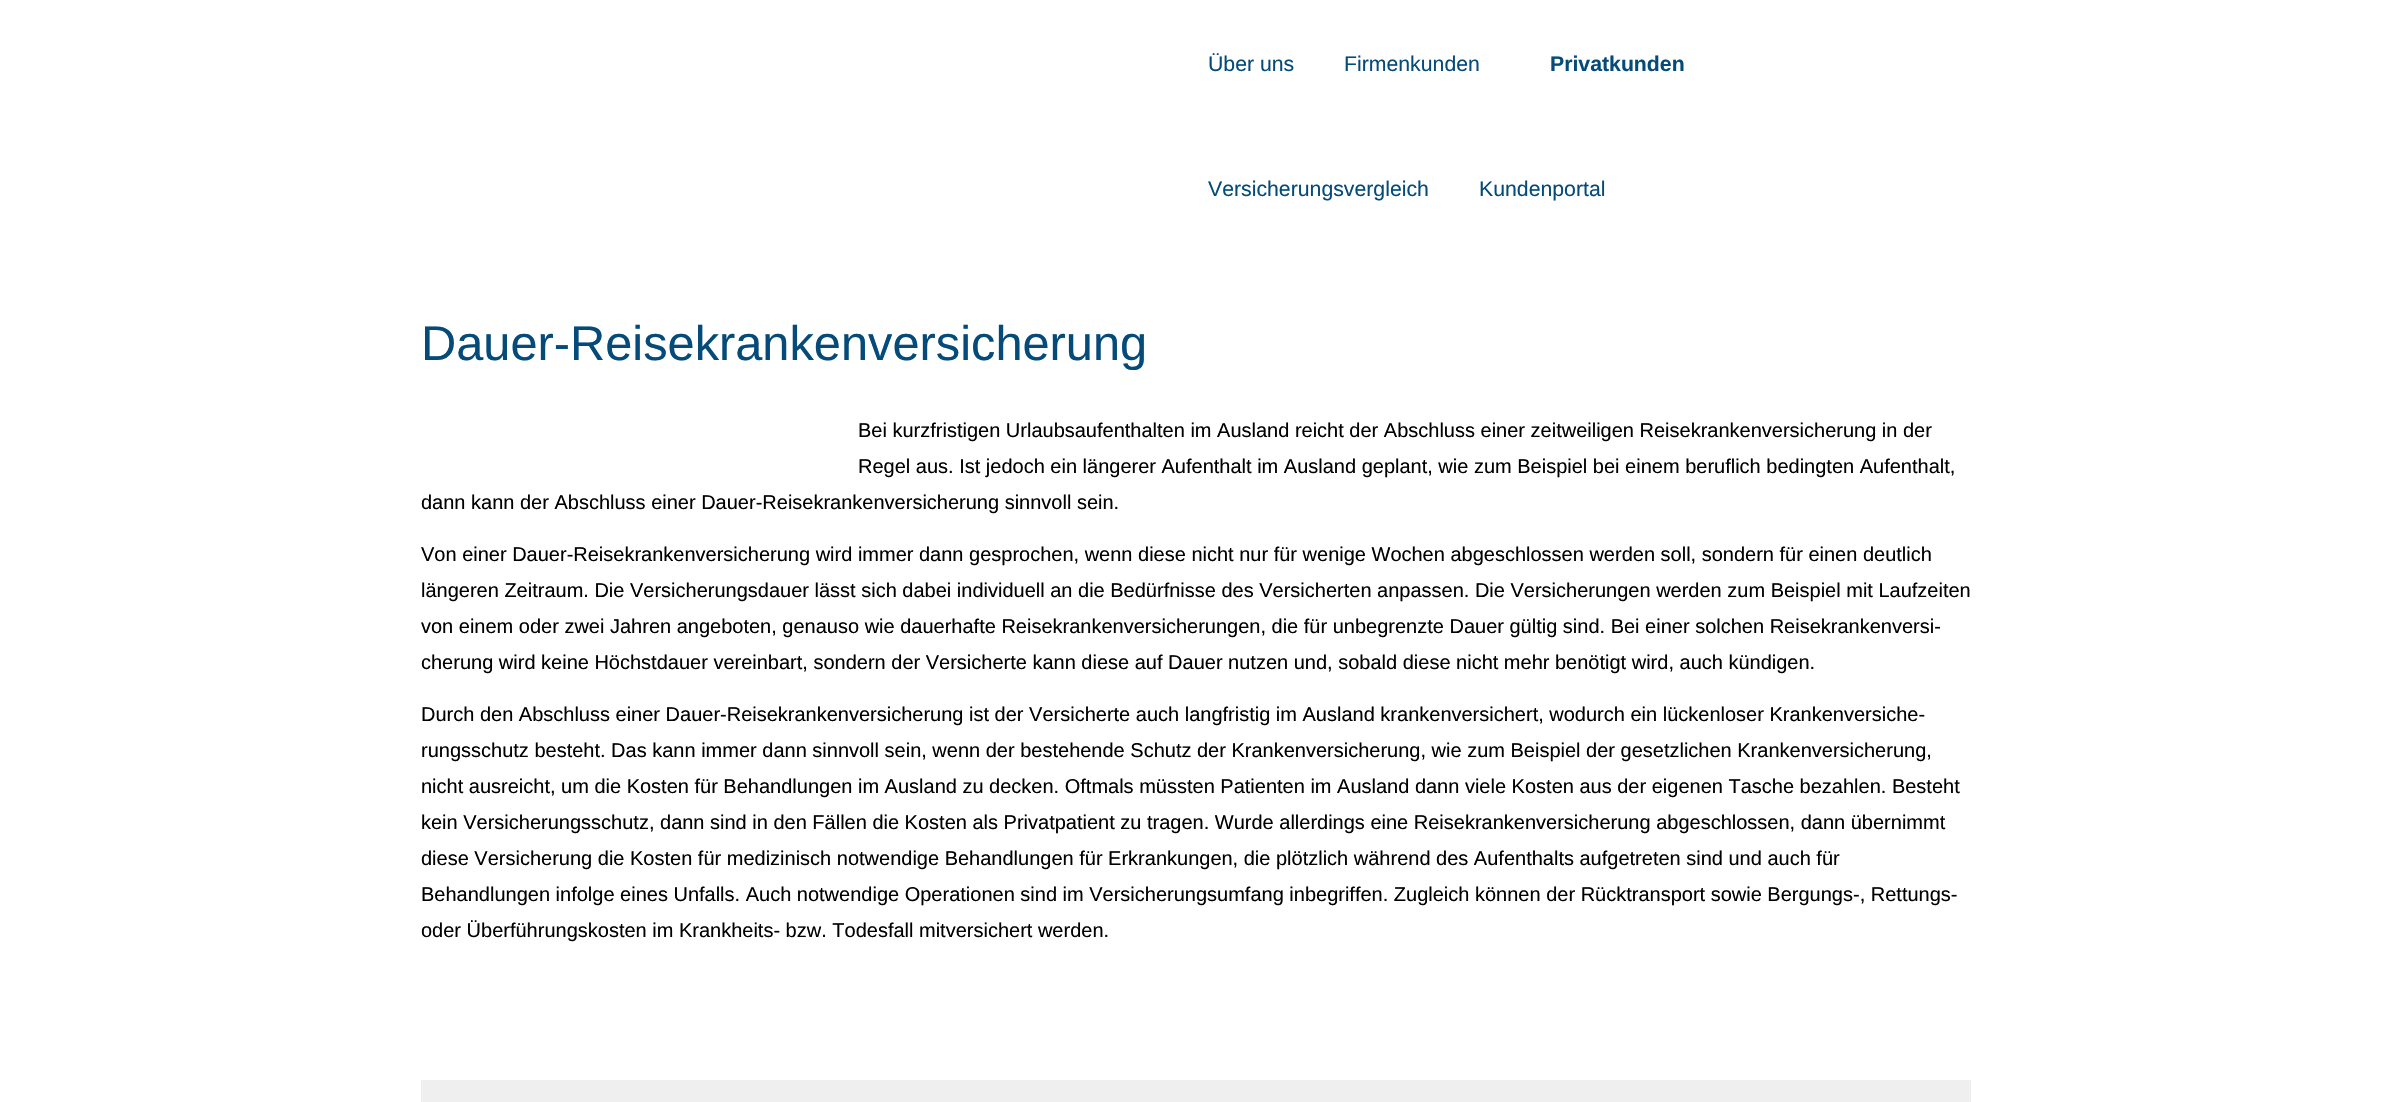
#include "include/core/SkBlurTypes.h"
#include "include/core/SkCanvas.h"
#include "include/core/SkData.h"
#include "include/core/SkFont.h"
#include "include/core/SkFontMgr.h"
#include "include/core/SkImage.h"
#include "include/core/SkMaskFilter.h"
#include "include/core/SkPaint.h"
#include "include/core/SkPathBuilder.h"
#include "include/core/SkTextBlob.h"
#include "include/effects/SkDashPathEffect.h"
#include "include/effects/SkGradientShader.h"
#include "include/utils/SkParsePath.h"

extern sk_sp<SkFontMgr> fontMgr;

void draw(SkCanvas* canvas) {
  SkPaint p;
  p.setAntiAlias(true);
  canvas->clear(SK_ColorWHITE);
  p.setColor(SkColorSetRGB(239, 239, 239));
  canvas->drawRect(SkRect::MakeLTRB(421, 1080, 1971, 1102), p);
  SkFont font1(fontMgr->matchFamilyStyle("Liberation Sans", SkFontStyle::Normal()), 21.25f);
  font1.setSubpixel(true);
  p.setColor(SkColorSetRGB(5, 75, 122));
  canvas->drawString("Über uns", 1208, 71, font1, p);
  canvas->drawString("Firmenkunden", 1344, 71, font1, p);
  SkFont font2(fontMgr->matchFamilyStyle("Liberation Sans", SkFontStyle::Bold()), 21.25f);
  font2.setSubpixel(true);
  canvas->drawString("Privatkunden", 1550, 71, font2, p);
  canvas->drawString("Versicherungsvergleich", 1208, 196, font1, p);
  canvas->drawString("Kundenportal", 1479, 196, font1, p);
  SkFont font3(fontMgr->matchFamilyStyle("Liberation Sans", SkFontStyle::Normal()), 48.75f);
  font3.setSubpixel(true);
  canvas->drawString("Dauer-Reisekrankenversicherung", 421, 360, font3, p);
  SkFont font4(fontMgr->matchFamilyStyle("Liberation Sans", SkFontStyle::Normal()), 20);
  font4.setSubpixel(true);
  p.setColor(SK_ColorBLACK);
  canvas->drawString("Bei kurzfristigen Urlaubsaufenthalten im Ausland reicht der Abschluss einer zeitweiligen Reisekrankenversicherung in der", 858, 437, font4, p);
  canvas->drawString("Regel aus. Ist jedoch ein längerer Aufenthalt im Ausland geplant, wie zum Beispiel bei einem beruflich bedingten Aufenthalt,", 858, 473, font4, p);
  canvas->drawString("dann kann der Abschluss einer Dauer-Reisekrankenversicherung sinnvoll sein.", 421, 509, font4, p);
  canvas->drawString("Von einer Dauer-Reisekrankenversicherung wird immer dann gesprochen, wenn diese nicht nur für wenige Wochen abgeschlossen werden soll, sondern für einen deutlich", 421, 561, font4, p);
  canvas->drawString("längeren Zeitraum. Die Versicherungsdauer lässt sich dabei individuell an die Bedürfnisse des Versicherten anpassen. Die Versicherungen werden zum Beispiel mit Laufzeiten", 421, 597, font4, p);
  canvas->drawString("von einem oder zwei Jahren angeboten, genauso wie dauerhafte Reisekrankenversicherungen, die für unbegrenzte Dauer gültig sind. Bei einer solchen Reisekrankenversi-", 421, 633, font4, p);
  canvas->drawString("cherung wird keine Höchstdauer vereinbart, sondern der Versicherte kann diese auf Dauer nutzen und, sobald diese nicht mehr benötigt wird, auch kündigen.", 421, 669, font4, p);
  canvas->drawString("Durch den Abschluss einer Dauer-Reisekrankenversicherung ist der Versicherte auch langfristig im Ausland krankenversichert, wodurch ein lückenloser Krankenversiche-", 421, 721, font4, p);
  canvas->drawString("rungsschutz besteht. Das kann immer dann sinnvoll sein, wenn der bestehende Schutz der Krankenversicherung, wie zum Beispiel der gesetzlichen Krankenversicherung,", 421, 757, font4, p);
  canvas->drawString("nicht ausreicht, um die Kosten für Behandlungen im Ausland zu decken. Oftmals müssten Patienten im Ausland dann viele Kosten aus der eigenen Tasche bezahlen. Besteht", 421, 793, font4, p);
  canvas->drawString("kein Versicherungsschutz, dann sind in den Fällen die Kosten als Privatpatient zu tragen. Wurde allerdings eine Reisekrankenversicherung abgeschlossen, dann übernimmt", 421, 829, font4, p);
  canvas->drawString("diese Versicherung die Kosten für medizinisch notwendige Behandlungen für Erkrankungen, die plötzlich während des Aufenthalts aufgetreten sind und auch für", 421, 865, font4, p);
  canvas->drawString("Behandlungen infolge eines Unfalls. Auch notwendige Operationen sind im Versicherungsumfang inbegriffen. Zugleich können der Rücktransport sowie Bergungs-, Rettungs-", 421, 901, font4, p);
  canvas->drawString("oder Überführungskosten im Krankheits- bzw. Todesfall mitversichert werden.", 421, 937, font4, p);
}
